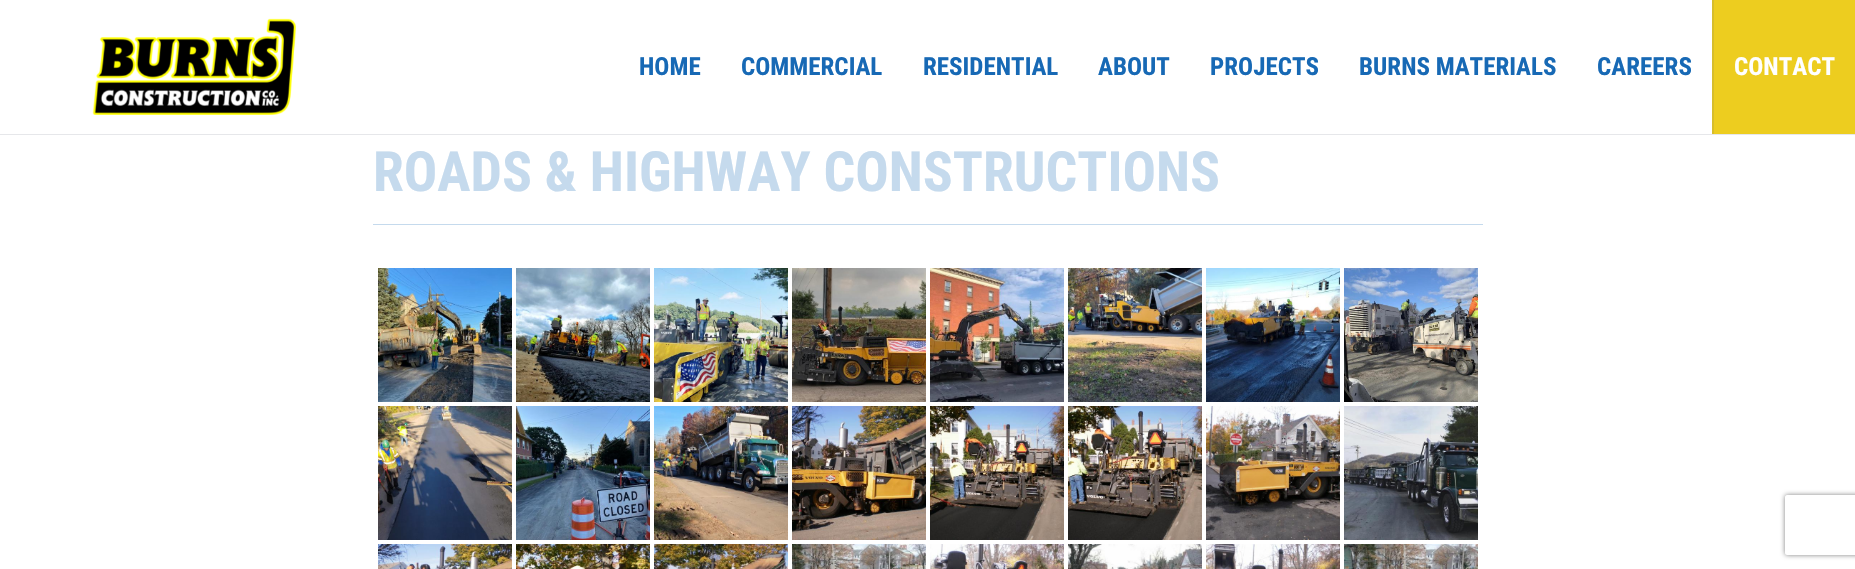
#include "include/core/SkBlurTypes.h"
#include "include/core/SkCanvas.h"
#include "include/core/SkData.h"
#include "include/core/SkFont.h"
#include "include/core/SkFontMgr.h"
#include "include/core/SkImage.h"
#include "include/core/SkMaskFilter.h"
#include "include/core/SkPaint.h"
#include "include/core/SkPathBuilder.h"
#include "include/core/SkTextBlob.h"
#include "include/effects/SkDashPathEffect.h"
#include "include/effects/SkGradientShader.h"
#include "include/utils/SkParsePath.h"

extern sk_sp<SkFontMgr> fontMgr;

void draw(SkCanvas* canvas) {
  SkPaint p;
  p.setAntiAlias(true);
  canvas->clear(SK_ColorWHITE);
  p.setColor(SkColorSetRGB(230, 231, 234));
  canvas->drawRect(SkRect::MakeLTRB(0, 134, 1855, 135), p);
  canvas->drawImageRect(SkImages::DeferredFromEncodedData(SkData::MakeFromFileName("images/1.png")), SkRect::MakeLTRB(92, 18, 297, 115), SkSamplingOptions());
  p.setColor(SkColorSetRGB(237, 205, 31));
  canvas->drawRect(SkRect::MakeLTRB(1714, 0, 1855, 134), p);
  p.setColor(SkColorSetRGB(215, 189, 43));
  canvas->drawRect(SkRect::MakeLTRB(1712, 0, 1714, 134), p);
  p.setColor(SkColorSetRGB(197, 218, 237));
  canvas->drawRect(SkRect::MakeLTRB(373, 224, 1483, 225), p);
  canvas->drawImageRect(SkImages::DeferredFromEncodedData(SkData::MakeFromFileName("images/2.png")), SkRect::MakeLTRB(378, 268, 512, 402), SkSamplingOptions());
  canvas->drawImageRect(SkImages::DeferredFromEncodedData(SkData::MakeFromFileName("images/3.png")), SkRect::MakeLTRB(516, 268, 650, 402), SkSamplingOptions());
  canvas->drawImageRect(SkImages::DeferredFromEncodedData(SkData::MakeFromFileName("images/4.png")), SkRect::MakeLTRB(654, 268, 788, 402), SkSamplingOptions());
  canvas->drawImageRect(SkImages::DeferredFromEncodedData(SkData::MakeFromFileName("images/5.png")), SkRect::MakeLTRB(792, 268, 926, 402), SkSamplingOptions());
  canvas->drawImageRect(SkImages::DeferredFromEncodedData(SkData::MakeFromFileName("images/6.png")), SkRect::MakeLTRB(930, 268, 1064, 402), SkSamplingOptions());
  canvas->drawImageRect(SkImages::DeferredFromEncodedData(SkData::MakeFromFileName("images/7.png")), SkRect::MakeLTRB(1068, 268, 1202, 402), SkSamplingOptions());
  canvas->drawImageRect(SkImages::DeferredFromEncodedData(SkData::MakeFromFileName("images/8.png")), SkRect::MakeLTRB(1206, 268, 1340, 402), SkSamplingOptions());
  canvas->drawImageRect(SkImages::DeferredFromEncodedData(SkData::MakeFromFileName("images/9.png")), SkRect::MakeLTRB(1344, 268, 1478, 402), SkSamplingOptions());
  canvas->drawImageRect(SkImages::DeferredFromEncodedData(SkData::MakeFromFileName("images/10.png")), SkRect::MakeLTRB(378, 406, 512, 540), SkSamplingOptions());
  canvas->drawImageRect(SkImages::DeferredFromEncodedData(SkData::MakeFromFileName("images/11.png")), SkRect::MakeLTRB(516, 406, 650, 540), SkSamplingOptions());
  canvas->drawImageRect(SkImages::DeferredFromEncodedData(SkData::MakeFromFileName("images/12.png")), SkRect::MakeLTRB(654, 406, 788, 540), SkSamplingOptions());
  canvas->drawImageRect(SkImages::DeferredFromEncodedData(SkData::MakeFromFileName("images/13.png")), SkRect::MakeLTRB(792, 406, 926, 540), SkSamplingOptions());
  canvas->drawImageRect(SkImages::DeferredFromEncodedData(SkData::MakeFromFileName("images/14.png")), SkRect::MakeLTRB(930, 406, 1064, 540), SkSamplingOptions());
  canvas->drawImageRect(SkImages::DeferredFromEncodedData(SkData::MakeFromFileName("images/15.png")), SkRect::MakeLTRB(1068, 406, 1202, 540), SkSamplingOptions());
  canvas->drawImageRect(SkImages::DeferredFromEncodedData(SkData::MakeFromFileName("images/16.png")), SkRect::MakeLTRB(1206, 406, 1340, 540), SkSamplingOptions());
  canvas->drawImageRect(SkImages::DeferredFromEncodedData(SkData::MakeFromFileName("images/17.png")), SkRect::MakeLTRB(1344, 406, 1478, 540), SkSamplingOptions());
  canvas->drawImageRect(SkImages::DeferredFromEncodedData(SkData::MakeFromFileName("images/18.png")), SkRect::MakeLTRB(378, 544, 512, 569), SkSamplingOptions());
  canvas->drawImageRect(SkImages::DeferredFromEncodedData(SkData::MakeFromFileName("images/19.png")), SkRect::MakeLTRB(516, 544, 650, 569), SkSamplingOptions());
  canvas->drawImageRect(SkImages::DeferredFromEncodedData(SkData::MakeFromFileName("images/20.png")), SkRect::MakeLTRB(654, 544, 788, 569), SkSamplingOptions());
  canvas->drawImageRect(SkImages::DeferredFromEncodedData(SkData::MakeFromFileName("images/21.png")), SkRect::MakeLTRB(792, 544, 926, 569), SkSamplingOptions());
  canvas->drawImageRect(SkImages::DeferredFromEncodedData(SkData::MakeFromFileName("images/22.png")), SkRect::MakeLTRB(930, 544, 1064, 569), SkSamplingOptions());
  canvas->drawImageRect(SkImages::DeferredFromEncodedData(SkData::MakeFromFileName("images/23.png")), SkRect::MakeLTRB(1068, 544, 1202, 569), SkSamplingOptions());
  canvas->drawImageRect(SkImages::DeferredFromEncodedData(SkData::MakeFromFileName("images/24.png")), SkRect::MakeLTRB(1206, 544, 1340, 569), SkSamplingOptions());
  canvas->drawImageRect(SkImages::DeferredFromEncodedData(SkData::MakeFromFileName("images/25.png")), SkRect::MakeLTRB(1344, 544, 1478, 569), SkSamplingOptions());
  canvas->save();
  canvas->clipPath(SkPathBuilder(SkPathFillType::kEvenOdd).moveTo(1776, 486).lineTo(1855, 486).lineTo(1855, 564).lineTo(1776, 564).close().moveTo(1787, 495).lineTo(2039, 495).cubicTo(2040, 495, 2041, 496, 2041, 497).lineTo(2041, 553).cubicTo(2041, 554, 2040, 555, 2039, 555).lineTo(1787, 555).cubicTo(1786, 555, 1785, 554, 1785, 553).lineTo(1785, 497).cubicTo(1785, 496, 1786, 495, 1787, 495).close().detach(), true);
  p.setColor(SkColorSetRGB(128, 128, 128));
  p.setMaskFilter(SkMaskFilter::MakeBlur(kNormal_SkBlurStyle, 2.5f));
  canvas->drawRoundRect(SkRect::MakeLTRB(1785, 495, 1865, 555), 2, 2, p);
  p.setMaskFilter(nullptr);
  canvas->restore();
  SkFont font1(fontMgr->matchFamilyStyle("Roboto Condensed", SkFontStyle::Bold()), 25);
  font1.setSubpixel(true);
  p.setColor(SkColorSetRGB(23, 105, 181));
  canvas->drawString("HOME", 639, 75, font1, p);
  canvas->drawString("COMMERCIAL", 741, 75, font1, p);
  canvas->drawString("RESIDENTIAL", 923, 75, font1, p);
  canvas->drawString("ABOUT", 1098, 75, font1, p);
  canvas->drawString("PROJECTS", 1210, 75, font1, p);
  canvas->drawString("BURNS MATERIALS", 1359, 75, font1, p);
  canvas->drawString("CAREERS", 1597, 75, font1, p);
  p.setColor(SK_ColorWHITE);
  canvas->drawString("CONTACT", 1734, 75, font1, p);
  SkFont font2(fontMgr->matchFamilyStyle("Roboto Condensed", SkFontStyle::Bold()), 55.6f);
  font2.setSubpixel(true);
  p.setColor(SkColorSetRGB(197, 218, 237));
  canvas->drawString("ROADS & HIGHWAY CONSTRUCTIONS", 373, 191, font2, p);
}
